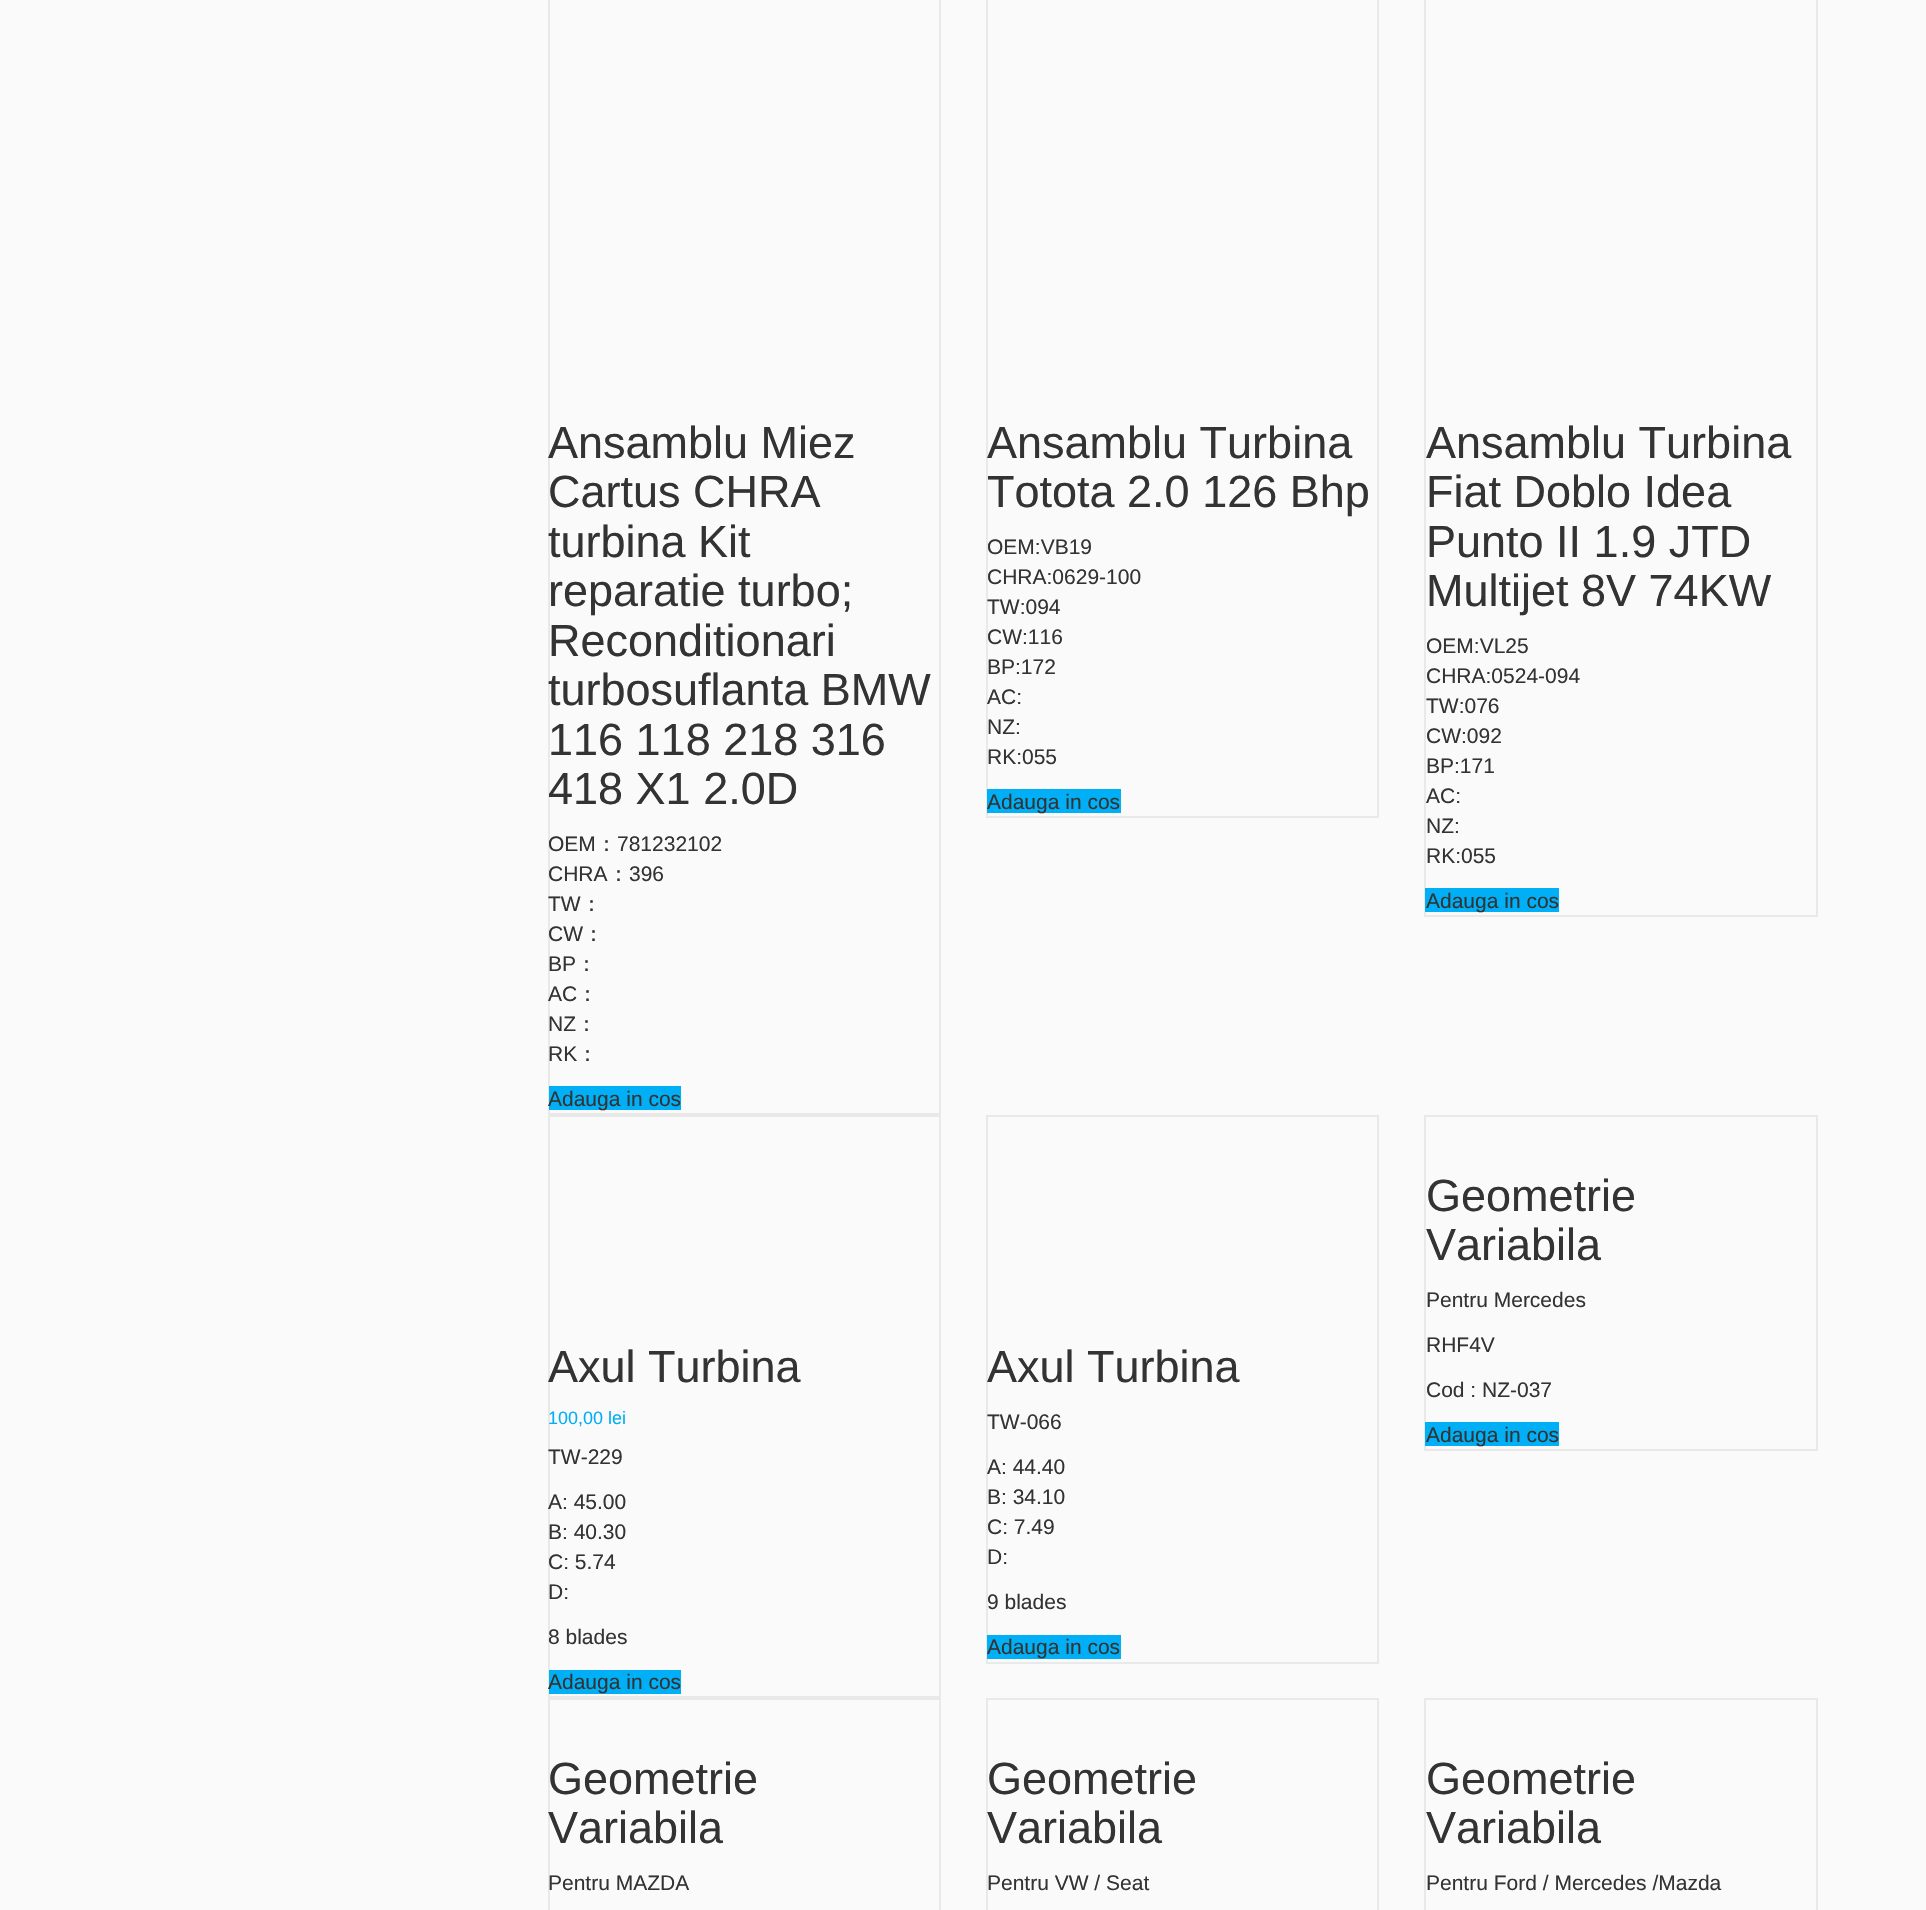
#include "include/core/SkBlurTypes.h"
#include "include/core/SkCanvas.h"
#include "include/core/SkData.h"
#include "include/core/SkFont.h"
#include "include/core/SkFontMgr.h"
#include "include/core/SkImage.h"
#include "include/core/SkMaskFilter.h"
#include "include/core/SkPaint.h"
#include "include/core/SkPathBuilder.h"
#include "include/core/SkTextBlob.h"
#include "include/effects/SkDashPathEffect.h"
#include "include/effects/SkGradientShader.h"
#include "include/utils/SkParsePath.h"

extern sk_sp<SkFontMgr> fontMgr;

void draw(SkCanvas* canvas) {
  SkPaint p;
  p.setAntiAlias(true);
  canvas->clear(SkColorSetRGB(250, 250, 250));
  p.setStyle(SkPaint::kStroke_Style);
  p.setStrokeWidth(2);
  p.setColor(SkColorSetRGB(233, 233, 233));
  canvas->drawRect(SkRect::MakeLTRB(549, -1, 940, 1114), p);
  p.setStyle(SkPaint::kFill_Style);
  p.setColor(SkColorSetRGB(0, 175, 245));
  canvas->drawRect(SkRect::MakeLTRB(549, 1086, 681, 1110), p);
  p.setStyle(SkPaint::kStroke_Style);
  p.setColor(SkColorSetRGB(233, 233, 233));
  canvas->drawRect(SkRect::MakeLTRB(987, -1, 1378, 817), p);
  p.setStyle(SkPaint::kFill_Style);
  p.setColor(SkColorSetRGB(0, 175, 245));
  canvas->drawRect(SkRect::MakeLTRB(987, 789, 1121, 813), p);
  p.setStyle(SkPaint::kStroke_Style);
  p.setColor(SkColorSetRGB(233, 233, 233));
  canvas->drawRect(SkRect::MakeLTRB(1425, -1, 1817, 916), p);
  p.setStyle(SkPaint::kFill_Style);
  p.setColor(SkColorSetRGB(0, 175, 245));
  canvas->drawRect(SkRect::MakeLTRB(1425, 888, 1559, 912), p);
  p.setStyle(SkPaint::kStroke_Style);
  p.setColor(SkColorSetRGB(233, 233, 233));
  canvas->drawRect(SkRect::MakeLTRB(1425, 1116, 1817, 1450), p);
  p.setStyle(SkPaint::kFill_Style);
  p.setColor(SkColorSetRGB(0, 175, 245));
  canvas->drawRect(SkRect::MakeLTRB(1425, 1422, 1559, 1446), p);
  p.setStyle(SkPaint::kStroke_Style);
  p.setColor(SkColorSetRGB(233, 233, 233));
  canvas->drawRect(SkRect::MakeLTRB(549, 1116, 940, 1697), p);
  p.setStyle(SkPaint::kFill_Style);
  p.setColor(SkColorSetRGB(0, 175, 245));
  canvas->drawRect(SkRect::MakeLTRB(549, 1670, 681, 1694), p);
  p.setStyle(SkPaint::kStroke_Style);
  p.setColor(SkColorSetRGB(233, 233, 233));
  canvas->drawRect(SkRect::MakeLTRB(987, 1116, 1378, 1663), p);
  p.setStyle(SkPaint::kFill_Style);
  p.setColor(SkColorSetRGB(0, 175, 245));
  canvas->drawRect(SkRect::MakeLTRB(987, 1635, 1121, 1659), p);
  p.setStyle(SkPaint::kStroke_Style);
  p.setColor(SkColorSetRGB(233, 233, 233));
  canvas->drawRect(SkRect::MakeLTRB(549, 1699, 940, 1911), p);
  canvas->drawRect(SkRect::MakeLTRB(987, 1699, 1378, 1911), p);
  canvas->drawRect(SkRect::MakeLTRB(1425, 1699, 1817, 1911), p);
  SkFont font1(fontMgr->matchFamilyStyle("Liberation Sans", SkFontStyle::Normal()), 45);
  font1.setSubpixel(true);
  p.setStyle(SkPaint::kFill_Style);
  p.setColor(SkColorSetRGB(51, 51, 51));
  canvas->drawString("Ansamblu Miez", 548, 458, font1, p);
  canvas->drawString("Cartus CHRA", 548, 507, font1, p);
  canvas->drawString("turbina Kit", 548, 557, font1, p);
  canvas->drawString("reparatie turbo;", 548, 606, font1, p);
  canvas->drawString("Reconditionari", 548, 656, font1, p);
  canvas->drawString("turbosuflanta BMW", 548, 705, font1, p);
  canvas->drawString("116 118 218 316", 548, 755, font1, p);
  canvas->drawString("418 X1 2.0D", 548, 804, font1, p);
  SkFont font2(fontMgr->matchFamilyStyle("Liberation Sans", SkFontStyle::Normal()), 21);
  font2.setSubpixel(true);
  canvas->drawString("OEM", 548, 851, font2, p);
  SkFont font3(fontMgr->matchFamilyStyle("WenQuanYi Zen Hei", SkFontStyle(500, SkFontStyle::kNormal_Width, SkFontStyle::kUpright_Slant)), 21);
  font3.setSubpixel(true);
  canvas->drawString("：", 596, 851, font3, p);
  canvas->drawString("781232102", 617, 851, font2, p);
  canvas->drawString("CHRA", 548, 881, font2, p);
  canvas->drawString("：", 608, 881, font3, p);
  canvas->drawString("396", 629, 881, font2, p);
  canvas->drawString("TW", 548, 911, font2, p);
  canvas->drawString("：", 581, 911, font3, p);
  canvas->drawString("CW", 548, 941, font2, p);
  canvas->drawString("：", 583, 941, font3, p);
  canvas->drawString("BP", 548, 971, font2, p);
  canvas->drawString("：", 576, 971, font3, p);
  canvas->drawString("AC", 548, 1001, font2, p);
  canvas->drawString("：", 577, 1001, font3, p);
  canvas->drawString("NZ", 548, 1031, font2, p);
  canvas->drawString("：", 576, 1031, font3, p);
  canvas->drawString("RK", 548, 1061, font2, p);
  canvas->drawString("：", 577, 1061, font3, p);
  canvas->drawString("Adauga in cos", 548, 1106, font2, p);
  canvas->drawString("Ansamblu Turbina", 987, 458, font1, p);
  canvas->drawString("Totota 2.0 126 Bhp", 987, 507, font1, p);
  canvas->drawString("OEM:VB19", 987, 554, font2, p);
  canvas->drawString("CHRA:0629-100", 987, 584, font2, p);
  canvas->drawString("TW:094", 987, 614, font2, p);
  canvas->drawString("CW:116", 987, 644, font2, p);
  canvas->drawString("BP:172", 987, 674, font2, p);
  canvas->drawString("AC:", 987, 704, font2, p);
  canvas->drawString("NZ:", 987, 734, font2, p);
  canvas->drawString("RK:055", 987, 764, font2, p);
  canvas->drawString("Adauga in cos", 987, 809, font2, p);
  canvas->drawString("Ansamblu Turbina", 1426, 458, font1, p);
  canvas->drawString("Fiat Doblo Idea", 1426, 507, font1, p);
  canvas->drawString("Punto II 1.9 JTD", 1426, 557, font1, p);
  canvas->drawString("Multijet 8V 74KW", 1426, 606, font1, p);
  canvas->drawString("OEM:VL25", 1426, 653, font2, p);
  canvas->drawString("CHRA:0524-094", 1426, 683, font2, p);
  canvas->drawString("TW:076", 1426, 713, font2, p);
  canvas->drawString("CW:092", 1426, 743, font2, p);
  canvas->drawString("BP:171", 1426, 773, font2, p);
  canvas->drawString("AC:", 1426, 803, font2, p);
  canvas->drawString("NZ:", 1426, 833, font2, p);
  canvas->drawString("RK:055", 1426, 863, font2, p);
  canvas->drawString("Adauga in cos", 1426, 908, font2, p);
  canvas->drawString("Geometrie", 1426, 1211, font1, p);
  canvas->drawString("Variabila", 1426, 1260, font1, p);
  canvas->drawString("Pentru Mercedes", 1426, 1307, font2, p);
  canvas->drawString("RHF4V", 1426, 1352, font2, p);
  canvas->drawString("Cod : NZ-037", 1426, 1397, font2, p);
  canvas->drawString("Adauga in cos", 1426, 1442, font2, p);
  canvas->drawString("Axul Turbina", 548, 1382, font1, p);
  SkFont font4(fontMgr->matchFamilyStyle("Liberation Sans", SkFontStyle::Normal()), 18);
  font4.setSubpixel(true);
  p.setColor(SkColorSetRGB(0, 175, 245));
  canvas->drawString("100,00 lei", 548, 1424, font4, p);
  p.setColor(SkColorSetRGB(51, 51, 51));
  canvas->drawString("TW-229", 548, 1464, font2, p);
  canvas->drawString("A: 45.00", 548, 1509, font2, p);
  canvas->drawString("B: 40.30", 548, 1539, font2, p);
  canvas->drawString("C: 5.74", 548, 1569, font2, p);
  canvas->drawString("D:", 548, 1599, font2, p);
  canvas->drawString("8 blades", 548, 1644, font2, p);
  canvas->drawString("Adauga in cos", 548, 1689, font2, p);
  canvas->drawString("Axul Turbina", 987, 1382, font1, p);
  canvas->drawString("TW-066", 987, 1429, font2, p);
  canvas->drawString("A: 44.40", 987, 1474, font2, p);
  canvas->drawString("B: 34.10", 987, 1504, font2, p);
  canvas->drawString("C: 7.49", 987, 1534, font2, p);
  canvas->drawString("D:", 987, 1564, font2, p);
  canvas->drawString("9 blades", 987, 1609, font2, p);
  canvas->drawString("Adauga in cos", 987, 1654, font2, p);
  canvas->drawString("Geometrie", 548, 1794, font1, p);
  canvas->drawString("Variabila", 548, 1843, font1, p);
  canvas->drawString("Pentru MAZDA", 548, 1890, font2, p);
  canvas->drawString("Geometrie", 987, 1794, font1, p);
  canvas->drawString("Variabila", 987, 1843, font1, p);
  canvas->drawString("Pentru VW / Seat", 987, 1890, font2, p);
  canvas->drawString("Geometrie", 1426, 1794, font1, p);
  canvas->drawString("Variabila", 1426, 1843, font1, p);
  canvas->drawString("Pentru Ford / Mercedes /Mazda", 1426, 1890, font2, p);
}
